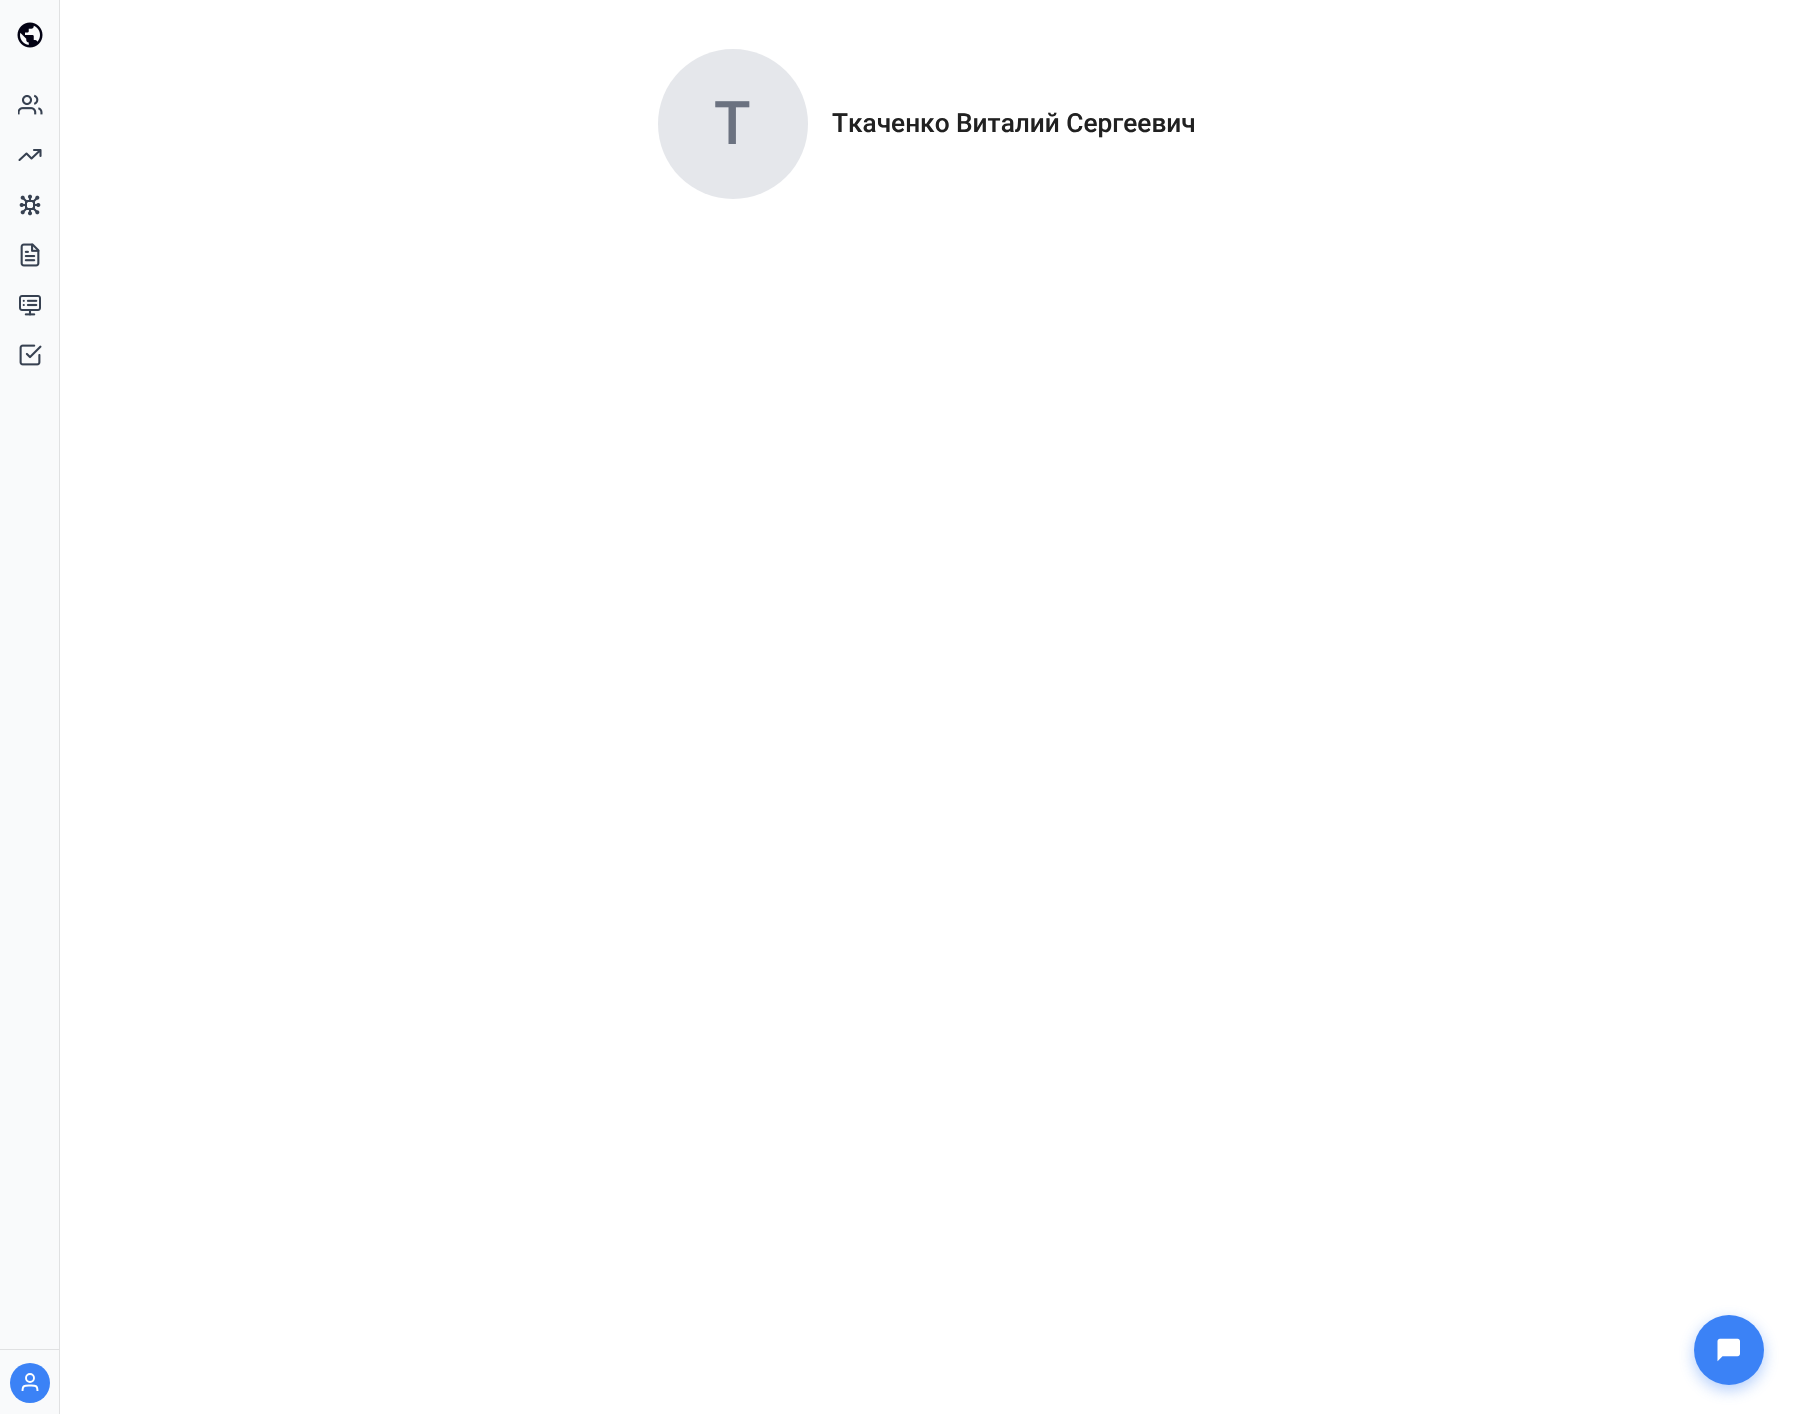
#include "include/core/SkBlurTypes.h"
#include "include/core/SkCanvas.h"
#include "include/core/SkData.h"
#include "include/core/SkFont.h"
#include "include/core/SkFontMgr.h"
#include "include/core/SkImage.h"
#include "include/core/SkMaskFilter.h"
#include "include/core/SkPaint.h"
#include "include/core/SkPathBuilder.h"
#include "include/core/SkTextBlob.h"
#include "include/effects/SkDashPathEffect.h"
#include "include/effects/SkGradientShader.h"
#include "include/utils/SkParsePath.h"

extern sk_sp<SkFontMgr> fontMgr;

void draw(SkCanvas* canvas) {
  SkPaint p;
  p.setAntiAlias(true);
  canvas->clear(SK_ColorWHITE);
  p.setColor(SkColorSetRGB(249, 250, 251));
  canvas->drawRect(SkRect::MakeLTRB(0, 0, 59, 1414), p);
  p.setColor(SkColorSetRGB(224, 225, 226));
  canvas->drawRect(SkRect::MakeLTRB(59, 0, 60, 1414), p);
  canvas->drawImageRect(SkImages::DeferredFromEncodedData(SkData::MakeFromFileName("images/1.png")), SkRect::MakeLTRB(17, 22, 43, 48), SkSamplingOptions());
  canvas->drawImageRect(SkImages::DeferredFromEncodedData(SkData::MakeFromFileName("images/2.png")), SkRect::MakeLTRB(18, 94, 43, 115), SkSamplingOptions());
  p.setStyle(SkPaint::kStroke_Style);
  p.setStrokeWidth(2.1f);
  p.setStrokeCap(SkPaint::kRound_Cap);
  p.setStrokeJoin(SkPaint::kRound_Join);
  p.setColor(SkColorSetRGB(55, 65, 81));
  canvas->drawPath(SkPathBuilder().moveTo(40.5f, 150).lineTo(31.5f, 158.5f).lineTo(26.5f, 153.5f).lineTo(19.5f, 160).moveTo(34, 150).lineTo(40.5f, 150).lineTo(40.5f, 156).detach(), p);
  canvas->drawImageRect(SkImages::DeferredFromEncodedData(SkData::MakeFromFileName("images/3.png")), SkRect::MakeLTRB(19, 194, 41, 216), SkSamplingOptions());
  canvas->drawImageRect(SkImages::DeferredFromEncodedData(SkData::MakeFromFileName("images/4.png")), SkRect::MakeLTRB(20, 243, 40, 267), SkSamplingOptions());
  canvas->drawImageRect(SkImages::DeferredFromEncodedData(SkData::MakeFromFileName("images/5.png")), SkRect::MakeLTRB(19, 295, 41, 316), SkSamplingOptions());
  canvas->drawImageRect(SkImages::DeferredFromEncodedData(SkData::MakeFromFileName("images/6.png")), SkRect::MakeLTRB(19, 344, 42, 366), SkSamplingOptions());
  p.setStyle(SkPaint::kFill_Style);
  p.setColor(SkColorSetRGB(224, 225, 226));
  canvas->drawRect(SkRect::MakeLTRB(0, 1349, 59, 1350), p);
  p.setColor(SkColorSetRGB(59, 130, 246));
  canvas->drawCircle(30, 1383, 20, p);
  p.setStyle(SkPaint::kStroke_Style);
  p.setStrokeWidth(1.9f);
  p.setStrokeCap(SkPaint::kButt_Cap);
  p.setStrokeJoin(SkPaint::kMiter_Join);
  p.setColor(SK_ColorWHITE);
  canvas->drawPath(SkPathBuilder().moveTo(37.5f, 1391).cubicTo(37.5f, 1385, 35, 1385.5f, 30, 1385.5f).cubicTo(25, 1385.5f, 22.5f, 1385, 22.5f, 1391).detach(), p);
  canvas->drawCircle(30, 1378, 4, p);
  p.setStyle(SkPaint::kFill_Style);
  p.setColor(SkColorSetRGB(229, 231, 235));
  canvas->drawCircle(733, 124, 75, p);
  p.setColor(SkColorSetARGB(102, 59, 130, 246));
  p.setMaskFilter(SkMaskFilter::MakeBlur(kNormal_SkBlurStyle, 7.5f));
  canvas->drawRoundRect(SkRect::MakeLTRB(1694, 1320, 1764, 1390), 35, 35, p);
  p.setMaskFilter(nullptr);
  p.setColor(SkColorSetRGB(59, 130, 246));
  canvas->drawCircle(1729, 1350, 35, p);
  canvas->drawImageRect(SkImages::DeferredFromEncodedData(SkData::MakeFromFileName("images/7.png")), SkRect::MakeLTRB(1717, 1338, 1740, 1362), SkSamplingOptions());
  SkFont font1(fontMgr->matchFamilyStyle("Roboto", SkFontStyle(500, SkFontStyle::kNormal_Width, SkFontStyle::kUpright_Slant)), 60);
  font1.setSubpixel(true);
  p.setColor(SkColorSetRGB(107, 114, 128));
  canvas->drawString("Т", 714, 144, font1, p);
  SkFont font2(fontMgr->matchFamilyStyle("Roboto", SkFontStyle(500, SkFontStyle::kNormal_Width, SkFontStyle::kUpright_Slant)), 26.25f);
  font2.setSubpixel(true);
  p.setColor(SkColorSetRGB(33, 33, 33));
  canvas->drawString("Ткаченко Виталий Сергеевич", 832, 132, font2, p);
}
